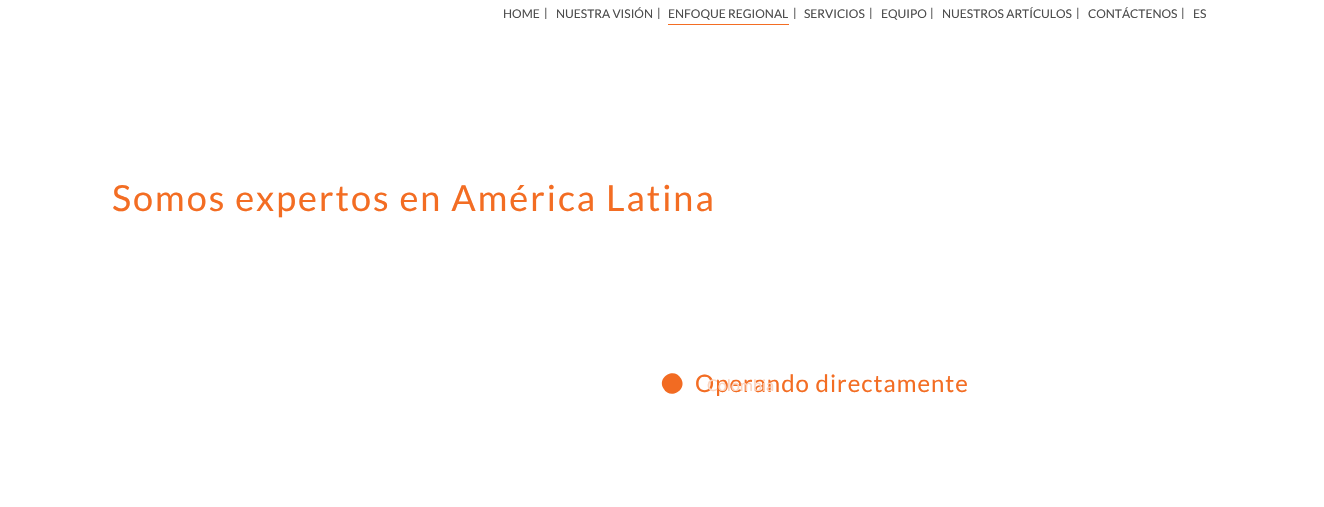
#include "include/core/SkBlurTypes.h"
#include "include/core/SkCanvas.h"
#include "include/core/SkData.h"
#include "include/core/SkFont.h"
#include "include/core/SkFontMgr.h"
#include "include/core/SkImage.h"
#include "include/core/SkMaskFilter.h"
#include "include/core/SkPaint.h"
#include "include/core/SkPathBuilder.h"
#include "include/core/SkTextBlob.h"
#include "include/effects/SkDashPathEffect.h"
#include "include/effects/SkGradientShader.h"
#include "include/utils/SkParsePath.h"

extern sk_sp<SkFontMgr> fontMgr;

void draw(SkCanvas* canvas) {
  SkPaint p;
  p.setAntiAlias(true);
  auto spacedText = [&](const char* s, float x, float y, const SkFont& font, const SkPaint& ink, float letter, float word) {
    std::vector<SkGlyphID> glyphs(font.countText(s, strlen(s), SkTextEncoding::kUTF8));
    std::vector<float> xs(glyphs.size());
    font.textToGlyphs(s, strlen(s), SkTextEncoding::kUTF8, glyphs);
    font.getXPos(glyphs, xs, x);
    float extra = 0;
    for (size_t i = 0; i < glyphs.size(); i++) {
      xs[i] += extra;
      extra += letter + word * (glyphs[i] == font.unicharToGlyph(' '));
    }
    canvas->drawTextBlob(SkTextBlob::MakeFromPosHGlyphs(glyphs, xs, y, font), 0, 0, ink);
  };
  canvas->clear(SK_ColorWHITE);
  p.setColor(SkColorSetRGB(243, 109, 35));
  canvas->drawRect(SkRect::MakeLTRB(668, 24, 789, 25), p);
  p.setColor(SkColorSetRGB(242, 107, 34));
  canvas->drawPath(SkPathBuilder().moveTo(681, 378.5f).cubicTo(688, 390, 670, 400.5f, 663.5f, 388.5f).cubicTo(656.5f, 377, 674.5f, 366.5f, 681, 378.5f).close().detach(), p);
  SkFont font1(fontMgr->matchFamilyStyle("Lato", SkFontStyle::Normal()), 12);
  font1.setSubpixel(true);
  p.setColor(SkColorSetRGB(77, 77, 77));
  canvas->drawString("HOME", 503, 18, font1, p);
  canvas->drawString("|", 544, 17, font1, p);
  canvas->drawString("NUESTRA VISIÓN", 556, 18, font1, p);
  canvas->drawString("|", 657, 17, font1, p);
  canvas->drawString("ENFOQUE REGIONAL", 668, 18, font1, p);
  canvas->drawString("|", 793, 17, font1, p);
  canvas->drawString("SERVICIOS", 804, 18, font1, p);
  canvas->drawString("|", 869, 17, font1, p);
  canvas->drawString("EQUIPO", 881, 18, font1, p);
  canvas->drawString("|", 930, 17, font1, p);
  canvas->drawString("NUESTROS ARTÍCULOS", 942, 18, font1, p);
  canvas->drawString("|", 1076, 17, font1, p);
  canvas->drawString("CONTÁCTENOS", 1088, 18, font1, p);
  canvas->drawString("|", 1181, 17, font1, p);
  canvas->drawString("ES", 1193, 18, font1, p);
  SkFont font2(fontMgr->matchFamilyStyle("Lato", SkFontStyle::Normal()), 36);
  font2.setSubpixel(true);
  p.setColor(SkColorSetRGB(243, 109, 35));
  spacedText("Somos expertos en América Latina", 112, 211, font2, p, 2, 0);
  SkFont font3(fontMgr->matchFamilyStyle("Lato", SkFontStyle::Normal()), 24);
  font3.setSubpixel(true);
  spacedText("Operando directamente", 695, 392, font3, p, 1, 0);
  SkFont font4(fontMgr->matchFamilyStyle("Lato", SkFontStyle::Normal()), 16);
  font4.setSubpixel(true);
  p.setColor(SkColorSetRGB(251, 212, 191));
  canvas->drawString("Colombia", 707, 391, font4, p);
}
